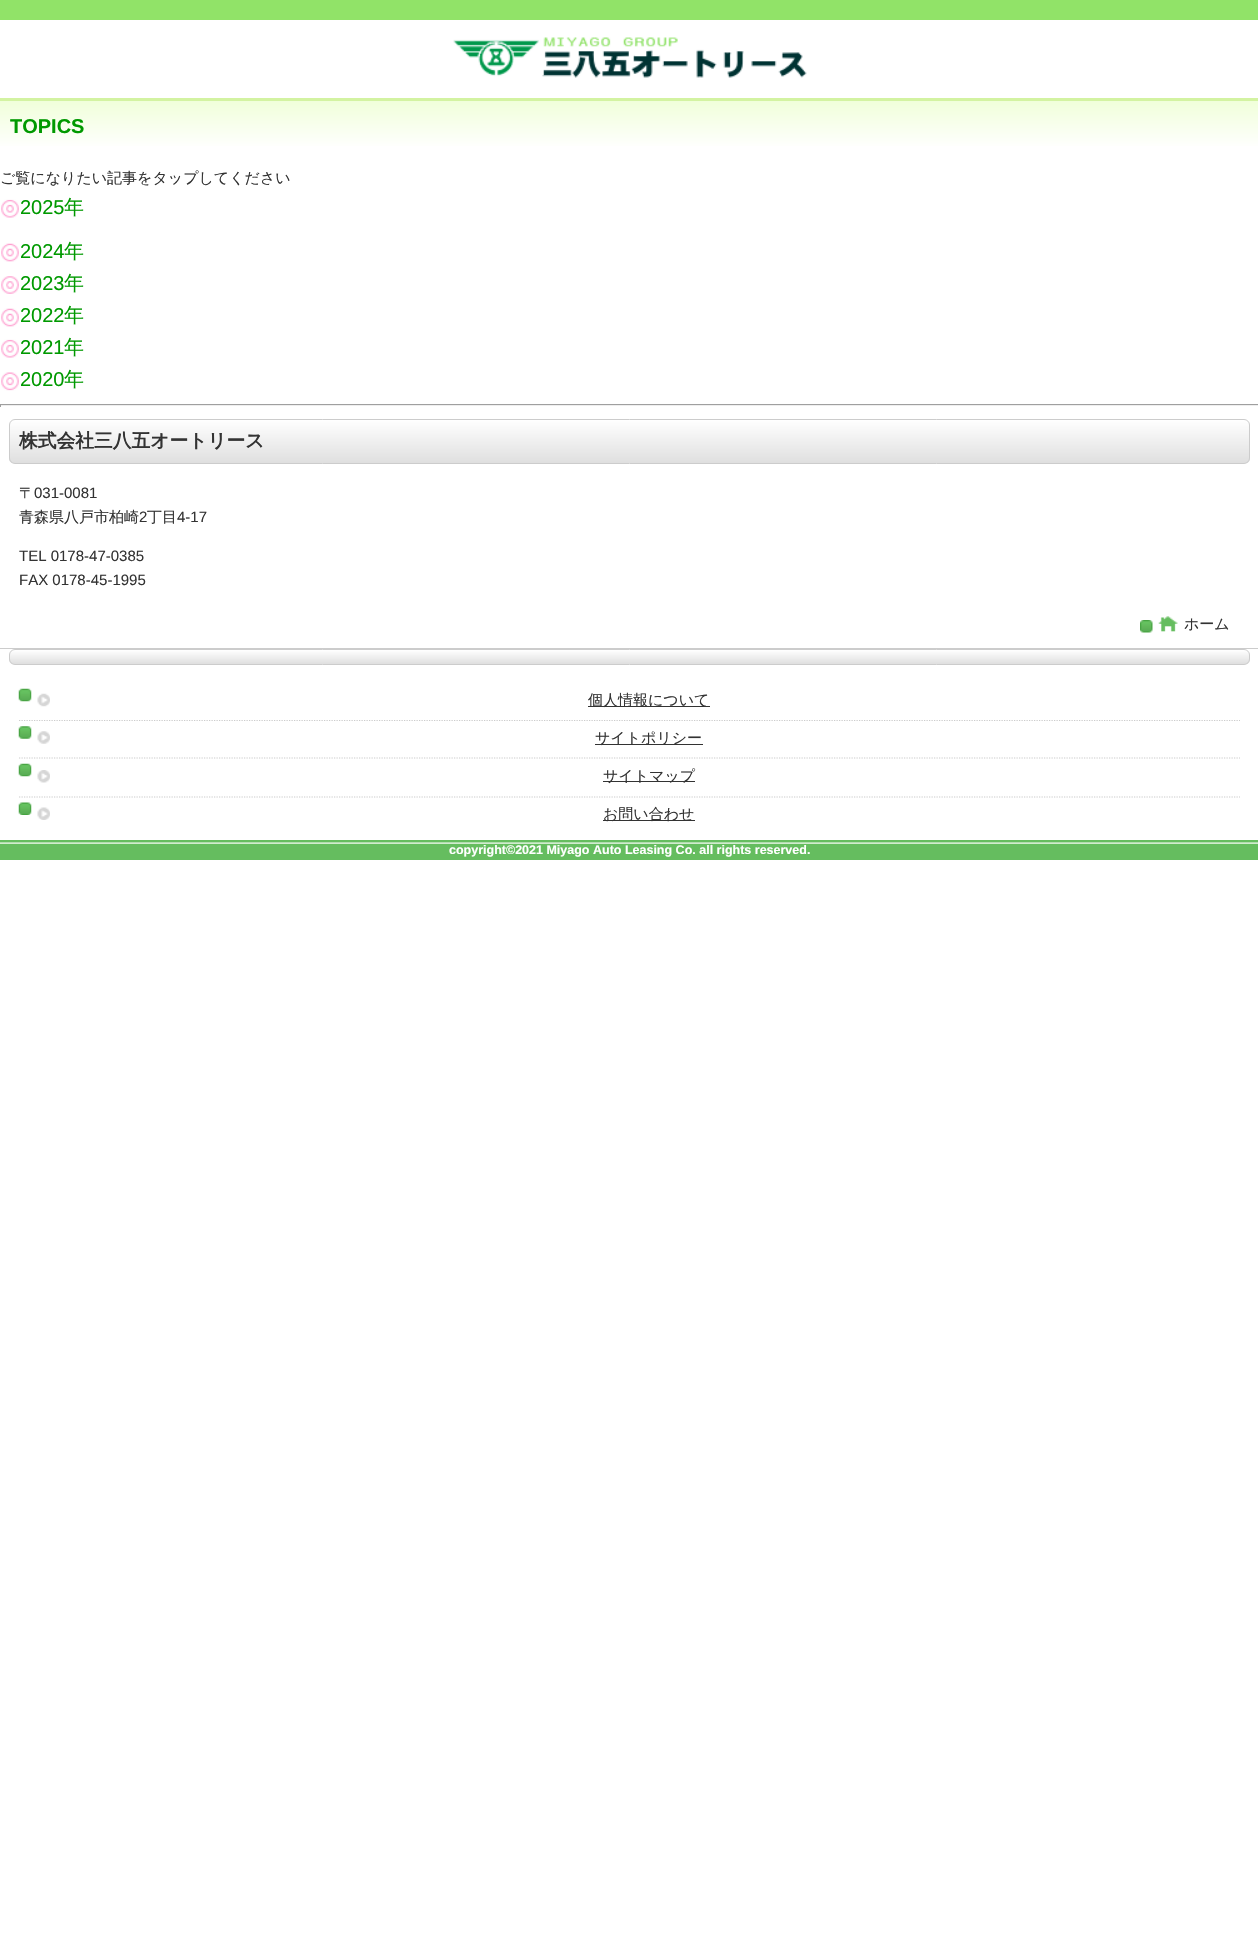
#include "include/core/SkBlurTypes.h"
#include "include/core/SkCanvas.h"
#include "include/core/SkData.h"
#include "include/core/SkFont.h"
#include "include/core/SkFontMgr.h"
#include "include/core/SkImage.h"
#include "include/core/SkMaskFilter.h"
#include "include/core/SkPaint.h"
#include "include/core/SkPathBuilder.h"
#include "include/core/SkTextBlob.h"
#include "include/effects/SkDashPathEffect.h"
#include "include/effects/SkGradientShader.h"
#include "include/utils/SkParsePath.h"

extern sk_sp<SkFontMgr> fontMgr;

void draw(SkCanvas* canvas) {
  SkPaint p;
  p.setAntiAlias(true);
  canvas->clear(SK_ColorWHITE);
  p.setColor(SkColorSetRGB(145, 227, 104));
  canvas->drawRect(SkRect::MakeLTRB(0, 0, 1258, 20), p);
  canvas->drawImageRect(SkImages::DeferredFromEncodedData(SkData::MakeFromFileName("images/1.png")), SkRect::MakeLTRB(453, 37, 807, 78), SkSamplingOptions());
  {
    const SkColor colors[] = {SkColorSetRGB(240, 255, 217), SK_ColorWHITE};
    const float stops[] = {0, 1};
    const SkPoint ends[] = {{0, 100}, {0, 149}};
    p.setShader(SkGradientShader::MakeLinear(ends, colors, stops, 2, SkTileMode::kClamp));
    p.setAlpha(255);
  }
  canvas->drawRect(SkRect::MakeLTRB(0, 101, 1258, 146), p);
  p.setShader(nullptr);
  p.setColor(SkColorSetRGB(211, 243, 161));
  canvas->drawRect(SkRect::MakeLTRB(0, 98, 1258, 101), p);
  canvas->drawImageRect(SkImages::DeferredFromEncodedData(SkData::MakeFromFileName("images/2.png")), SkRect::MakeLTRB(1, 199, 19, 218), SkSamplingOptions());
  canvas->drawImageRect(SkImages::DeferredFromEncodedData(SkData::MakeFromFileName("images/3.png")), SkRect::MakeLTRB(1, 243, 19, 262), SkSamplingOptions());
  canvas->drawImageRect(SkImages::DeferredFromEncodedData(SkData::MakeFromFileName("images/4.png")), SkRect::MakeLTRB(1, 276, 19, 294), SkSamplingOptions());
  canvas->drawImageRect(SkImages::DeferredFromEncodedData(SkData::MakeFromFileName("images/3.png")), SkRect::MakeLTRB(1, 308, 19, 327), SkSamplingOptions());
  canvas->drawImageRect(SkImages::DeferredFromEncodedData(SkData::MakeFromFileName("images/2.png")), SkRect::MakeLTRB(1, 339, 19, 358), SkSamplingOptions());
  canvas->drawImageRect(SkImages::DeferredFromEncodedData(SkData::MakeFromFileName("images/5.png")), SkRect::MakeLTRB(1, 372, 19, 391), SkSamplingOptions());
  p.setColor(SkColorSetRGB(159, 159, 159));
  canvas->drawRect(SkRect::MakeLTRB(0, 404, 1258, 405), p);
  p.setColor(SkColorSetRGB(238, 238, 238));
  canvas->drawRect(SkRect::MakeLTRB(0, 405, 1258, 406), p);
  p.setColor(SkColorSetRGB(159, 159, 159));
  canvas->drawRect(SkRect::MakeLTRB(0, 404, 1, 407), p);
  canvas->save();
  canvas->clipPath(SkPathBuilder().moveTo(15, 419).lineTo(1244, 419).cubicTo(1247.5f, 419, 1250, 421.5f, 1250, 425).lineTo(1250, 458).cubicTo(1250, 461.5f, 1247.5f, 464, 1244, 464).lineTo(15, 464).cubicTo(11.5f, 464, 9, 461.5f, 9, 458).lineTo(9, 425).cubicTo(9, 421.5f, 11.5f, 419, 15, 419).close().detach(), true);
  {
    const SkColor colors[] = {SK_ColorWHITE, SkColorSetRGB(223, 223, 223)};
    const float stops[] = {0, 1};
    const SkPoint ends[] = {{10, 420}, {10, 463}};
    p.setShader(SkGradientShader::MakeLinear(ends, colors, stops, 2, SkTileMode::kClamp));
    p.setAlpha(255);
  }
  canvas->drawRect(SkRect::MakeLTRB(9, 420, 1250, 463), p);
  canvas->restore();
  p.setStyle(SkPaint::kStroke_Style);
  p.setStrokeWidth(1);
  p.setShader(nullptr);
  p.setColor(SkColorSetRGB(204, 204, 204));
  canvas->drawRoundRect(SkRect::MakeLTRB(9.5f, 419.5f, 1249.5f, 463.5f), 5.5f, 5.5f, p);
  canvas->drawImageRect(SkImages::DeferredFromEncodedData(SkData::MakeFromFileName("images/6.png")), SkRect::MakeLTRB(1140, 620, 1153, 633), SkSamplingOptions());
  canvas->drawImageRect(SkImages::DeferredFromEncodedData(SkData::MakeFromFileName("images/7.png")), SkRect::MakeLTRB(1158, 616, 1178, 632), SkSamplingOptions());
  p.setStyle(SkPaint::kFill_Style);
  canvas->drawRect(SkRect::MakeLTRB(0, 648, 1258, 649), p);
  canvas->save();
  canvas->clipPath(SkPathBuilder().moveTo(15, 649).lineTo(1244, 649).cubicTo(1247.5f, 649, 1250, 651.5f, 1250, 655).lineTo(1250, 659).cubicTo(1250, 662.5f, 1247.5f, 665, 1244, 665).lineTo(15, 665).cubicTo(11.5f, 665, 9, 662.5f, 9, 659).lineTo(9, 655).cubicTo(9, 651.5f, 11.5f, 649, 15, 649).close().detach(), true);
  {
    const SkColor colors[] = {SK_ColorWHITE, SkColorSetRGB(223, 223, 223)};
    const float stops[] = {0, 1};
    const SkPoint ends[] = {{10, 650}, {10, 664}};
    p.setShader(SkGradientShader::MakeLinear(ends, colors, stops, 2, SkTileMode::kClamp));
    p.setAlpha(255);
  }
  canvas->drawRect(SkRect::MakeLTRB(9, 650, 1250, 664), p);
  canvas->restore();
  p.setStyle(SkPaint::kStroke_Style);
  p.setShader(nullptr);
  p.setColor(SkColorSetRGB(204, 204, 204));
  canvas->drawRoundRect(SkRect::MakeLTRB(9.5f, 649.5f, 1249.5f, 664.5f), 5.5f, 5.5f, p);
  canvas->drawImageRect(SkImages::DeferredFromEncodedData(SkData::MakeFromFileName("images/8.png")), SkRect::MakeLTRB(18, 688, 32, 702), SkSamplingOptions());
  canvas->drawImageRect(SkImages::DeferredFromEncodedData(SkData::MakeFromFileName("images/9.png")), SkRect::MakeLTRB(37, 693, 50, 707), SkSamplingOptions());
  p.setStyle(SkPaint::kFill_Style);
  p.setColor(SkColorSetRGB(51, 51, 51));
  canvas->drawRect(SkRect::MakeLTRB(588, 706, 710, 707), p);
  canvas->drawImageRect(SkImages::DeferredFromEncodedData(SkData::MakeFromFileName("images/10.png")), SkRect::MakeLTRB(18, 726, 32, 739), SkSamplingOptions());
  p.setStyle(SkPaint::kStroke_Style);
  p.setStrokeWidth(1.2f);
  p.setColor(SkColorSetRGB(204, 204, 204));
  p.setPathEffect(SkDashPathEffect::Make({{1.25f, 1.25f}}, 0));
  canvas->drawPath(SkPathBuilder().moveTo(19, 720.5f).lineTo(1240, 720.5f).detach(), p);
  p.setPathEffect(nullptr);
  canvas->drawImageRect(SkImages::DeferredFromEncodedData(SkData::MakeFromFileName("images/11.png")), SkRect::MakeLTRB(37, 731, 50, 744), SkSamplingOptions());
  p.setStyle(SkPaint::kFill_Style);
  p.setColor(SkColorSetRGB(51, 51, 51));
  canvas->drawRect(SkRect::MakeLTRB(595, 744, 703, 745), p);
  canvas->drawImageRect(SkImages::DeferredFromEncodedData(SkData::MakeFromFileName("images/8.png")), SkRect::MakeLTRB(18, 763, 32, 777), SkSamplingOptions());
  p.setStyle(SkPaint::kStroke_Style);
  p.setColor(SkColorSetRGB(204, 204, 204));
  p.setPathEffect(SkDashPathEffect::Make({{1.25f, 1.25f}}, 0));
  canvas->drawPath(SkPathBuilder().moveTo(19, 758).lineTo(1240, 758).detach(), p);
  p.setPathEffect(nullptr);
  canvas->drawImageRect(SkImages::DeferredFromEncodedData(SkData::MakeFromFileName("images/12.png")), SkRect::MakeLTRB(37, 770, 50, 783), SkSamplingOptions());
  p.setStyle(SkPaint::kFill_Style);
  p.setColor(SkColorSetRGB(51, 51, 51));
  canvas->drawRect(SkRect::MakeLTRB(603, 781, 695, 782), p);
  canvas->drawImageRect(SkImages::DeferredFromEncodedData(SkData::MakeFromFileName("images/13.png")), SkRect::MakeLTRB(18, 802, 32, 815), SkSamplingOptions());
  p.setStyle(SkPaint::kStroke_Style);
  p.setColor(SkColorSetRGB(204, 204, 204));
  p.setPathEffect(SkDashPathEffect::Make({{1.25f, 1.25f}}, 0));
  canvas->drawPath(SkPathBuilder().moveTo(19, 797).lineTo(1240, 797).detach(), p);
  p.setPathEffect(nullptr);
  canvas->drawImageRect(SkImages::DeferredFromEncodedData(SkData::MakeFromFileName("images/14.png")), SkRect::MakeLTRB(37, 807, 50, 820), SkSamplingOptions());
  p.setStyle(SkPaint::kFill_Style);
  p.setColor(SkColorSetRGB(51, 51, 51));
  canvas->drawRect(SkRect::MakeLTRB(603, 820, 695, 821), p);
  canvas->drawImageRect(SkImages::DeferredFromEncodedData(SkData::MakeFromFileName("images/15.png")), SkRect::MakeLTRB(0, 840, 1258, 860), SkSamplingOptions());
  SkFont font1(fontMgr->matchFamilyStyle("Liberation Sans", SkFontStyle::Bold()), 20);
  font1.setSubpixel(true);
  p.setColor(SkColorSetRGB(0, 153, 0));
  canvas->drawString("TOPICS", 10, 133, font1, p);
  SkFont font2(fontMgr->matchFamilyStyle("WenQuanYi Zen Hei", SkFontStyle(500, SkFontStyle::kNormal_Width, SkFontStyle::kUpright_Slant)), 15);
  font2.setSubpixel(true);
  p.setColor(SkColorSetRGB(51, 51, 51));
  canvas->drawString("ご覧になりたい記事をタップしてください", 0, 183, font2, p);
  SkFont font3(fontMgr->matchFamilyStyle("Liberation Sans", SkFontStyle::Normal()), 20);
  font3.setSubpixel(true);
  p.setColor(SkColorSetRGB(0, 153, 0));
  canvas->drawString("2025", 20, 214, font3, p);
  SkFont font4(fontMgr->matchFamilyStyle("WenQuanYi Zen Hei", SkFontStyle(500, SkFontStyle::kNormal_Width, SkFontStyle::kUpright_Slant)), 20);
  font4.setSubpixel(true);
  canvas->drawString("年", 64, 214, font4, p);
  canvas->drawString("2024", 20, 258, font3, p);
  canvas->drawString("年", 64, 258, font4, p);
  canvas->drawString("2023", 20, 290, font3, p);
  canvas->drawString("年", 64, 290, font4, p);
  canvas->drawString("2022", 20, 322, font3, p);
  canvas->drawString("年", 64, 322, font4, p);
  canvas->drawString("2021", 20, 354, font3, p);
  canvas->drawString("年", 64, 354, font4, p);
  canvas->drawString("2020", 20, 386, font3, p);
  canvas->drawString("年", 64, 386, font4, p);
  SkFont font5(fontMgr->matchFamilyStyle("WenQuanYi Zen Hei", SkFontStyle::Bold()), 18.75f);
  font5.setSubpixel(true);
  p.setColor(SkColorSetRGB(51, 51, 51));
  canvas->drawString("株式会社三八五オートリース", 19, 447, font5, p);
  canvas->drawString("〒", 19, 498, font2, p);
  SkFont font6(fontMgr->matchFamilyStyle("Liberation Sans", SkFontStyle::Normal()), 15);
  font6.setSubpixel(true);
  canvas->drawString("031-0081", 34, 498, font6, p);
  canvas->drawString("青森県八戸市柏崎", 19, 522, font2, p);
  canvas->drawString("2", 139, 522, font6, p);
  canvas->drawString("丁目", 147, 522, font2, p);
  canvas->drawString("4-17", 177, 522, font6, p);
  canvas->drawString("TEL 0178-47-0385", 19, 561, font6, p);
  canvas->drawString("FAX 0178-45-1995", 19, 585, font6, p);
  canvas->drawString("ホーム", 1184, 629, font2, p);
  canvas->drawString("個人情報について", 588, 705, font2, p);
  canvas->drawString("サイトポリシー", 595, 743, font2, p);
  canvas->drawString("サイトマップ", 603, 781, font2, p);
  canvas->drawString("お問い合わせ", 603, 819, font2, p);
  SkFont font7(fontMgr->matchFamilyStyle("Liberation Sans", SkFontStyle::Bold()), 12.5f);
  font7.setSubpixel(true);
  p.setColor(SK_ColorWHITE);
  canvas->drawString("copyright©2021 Miyago Auto Leasing Co. all rights reserved.", 449, 854, font7, p);
}
